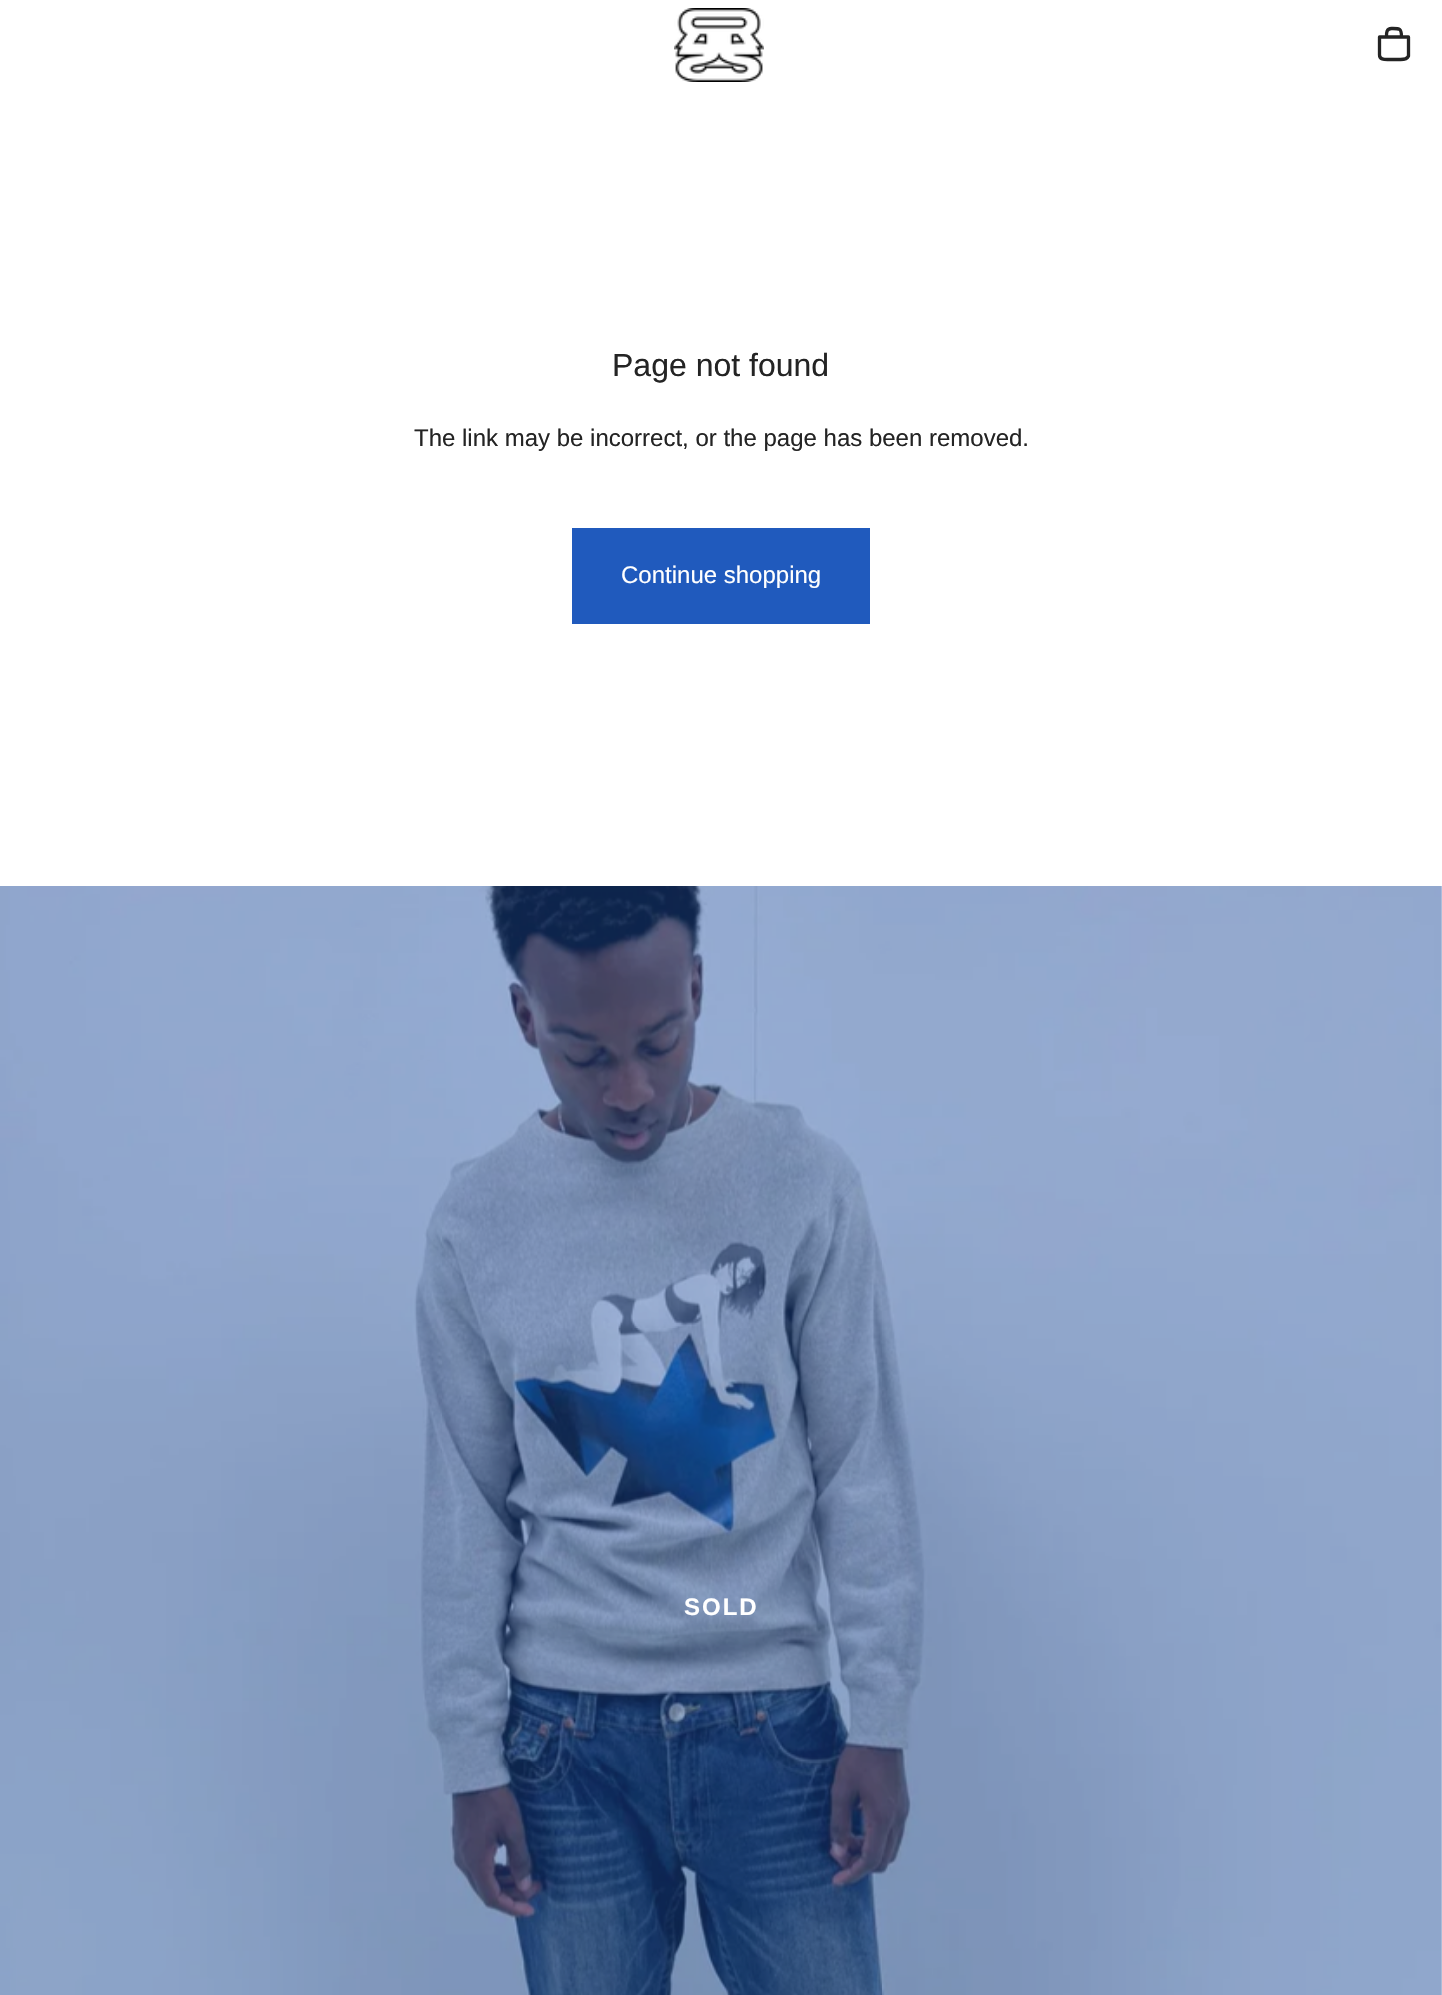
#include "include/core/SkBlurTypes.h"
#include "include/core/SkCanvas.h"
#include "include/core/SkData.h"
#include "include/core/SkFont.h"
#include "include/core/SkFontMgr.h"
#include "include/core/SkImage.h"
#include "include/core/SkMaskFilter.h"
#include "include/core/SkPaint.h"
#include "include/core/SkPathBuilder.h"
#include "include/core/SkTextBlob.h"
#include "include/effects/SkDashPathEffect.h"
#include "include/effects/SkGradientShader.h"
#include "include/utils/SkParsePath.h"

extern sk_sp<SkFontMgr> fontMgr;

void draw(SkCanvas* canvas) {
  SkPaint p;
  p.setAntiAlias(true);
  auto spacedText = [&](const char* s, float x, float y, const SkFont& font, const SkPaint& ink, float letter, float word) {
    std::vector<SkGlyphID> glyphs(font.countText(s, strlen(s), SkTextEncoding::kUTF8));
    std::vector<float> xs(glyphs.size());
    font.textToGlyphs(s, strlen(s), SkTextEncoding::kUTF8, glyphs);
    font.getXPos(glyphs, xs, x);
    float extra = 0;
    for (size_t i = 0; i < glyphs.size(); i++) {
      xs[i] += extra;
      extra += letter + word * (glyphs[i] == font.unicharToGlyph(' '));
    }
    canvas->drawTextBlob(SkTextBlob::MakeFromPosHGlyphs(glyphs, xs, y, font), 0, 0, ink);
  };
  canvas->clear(SK_ColorWHITE);
  canvas->drawImageRect(SkImages::DeferredFromEncodedData(SkData::MakeFromFileName("images/1.png")), SkRect::MakeLTRB(674, 8, 764, 82), SkSamplingOptions());
  p.setStyle(SkPaint::kStroke_Style);
  p.setStrokeWidth(3.3f);
  p.setStrokeCap(SkPaint::kRound_Cap);
  p.setStrokeJoin(SkPaint::kRound_Join);
  p.setColor(SkColorSetRGB(36, 36, 36));
  canvas->drawPath(SkPathBuilder().moveTo(1379.5f, 37).lineTo(1408.5f, 37).lineTo(1408.5f, 56).cubicTo(1407, 59.5f, 1403.5f, 59.5f, 1400.5f, 59.5f).lineTo(1387.5f, 59.5f).cubicTo(1384, 59.5f, 1379.5f, 59.5f, 1379.5f, 55).close().moveTo(1391.5f, 28.5f).cubicTo(1399.5f, 28.5f, 1401.5f, 28, 1401.5f, 37).lineTo(1386.5f, 37).cubicTo(1386.5f, 33.5f, 1386, 28.5f, 1391.5f, 28.5f).detach(), p);
  p.setStyle(SkPaint::kFill_Style);
  p.setColor(SkColorSetRGB(32, 90, 189));
  canvas->drawRect(SkRect::MakeLTRB(572, 528, 870, 624), p);
  canvas->drawImageRect(SkImages::DeferredFromEncodedData(SkData::MakeFromFileName("images/2.png")), SkRect::MakeLTRB(0, 886, 1442, 1995), SkSamplingOptions());
  SkFont font1(fontMgr->matchFamilyStyle("Liberation Sans", SkFontStyle::Normal()), 32);
  font1.setSubpixel(true);
  p.setColor(SkColorSetRGB(36, 36, 36));
  canvas->drawString("Page not found", 612, 376, font1, p);
  SkFont font2(fontMgr->matchFamilyStyle("Liberation Sans", SkFontStyle::Normal()), 24);
  font2.setSubpixel(true);
  canvas->drawString("The link may be incorrect, or the page has been removed.", 414, 446, font2, p);
  p.setColor(SK_ColorWHITE);
  canvas->drawString("Continue shopping", 621, 583, font2, p);
  SkFont font3(fontMgr->matchFamilyStyle("Liberation Sans", SkFontStyle::Bold()), 24);
  font3.setSubpixel(true);
  spacedText("SOLD", 684, 1615, font3, p, 2, 0);
}
